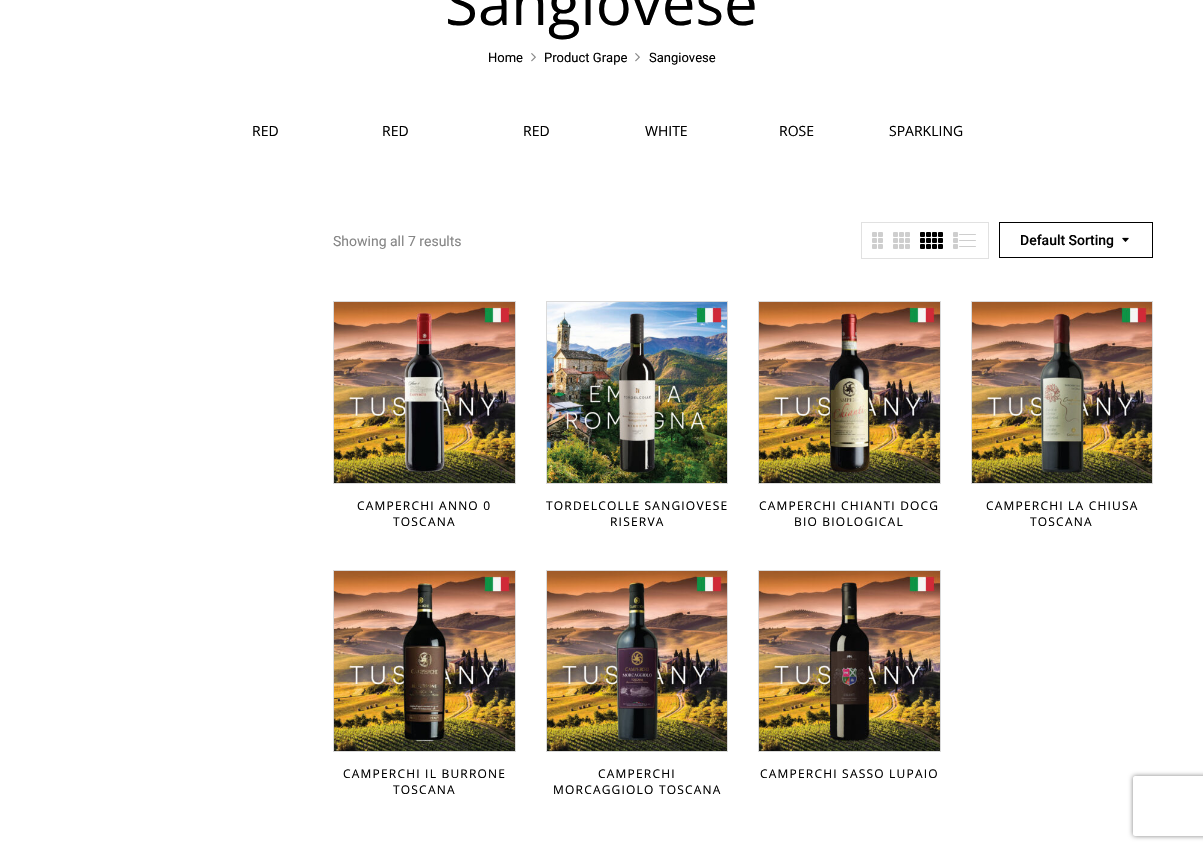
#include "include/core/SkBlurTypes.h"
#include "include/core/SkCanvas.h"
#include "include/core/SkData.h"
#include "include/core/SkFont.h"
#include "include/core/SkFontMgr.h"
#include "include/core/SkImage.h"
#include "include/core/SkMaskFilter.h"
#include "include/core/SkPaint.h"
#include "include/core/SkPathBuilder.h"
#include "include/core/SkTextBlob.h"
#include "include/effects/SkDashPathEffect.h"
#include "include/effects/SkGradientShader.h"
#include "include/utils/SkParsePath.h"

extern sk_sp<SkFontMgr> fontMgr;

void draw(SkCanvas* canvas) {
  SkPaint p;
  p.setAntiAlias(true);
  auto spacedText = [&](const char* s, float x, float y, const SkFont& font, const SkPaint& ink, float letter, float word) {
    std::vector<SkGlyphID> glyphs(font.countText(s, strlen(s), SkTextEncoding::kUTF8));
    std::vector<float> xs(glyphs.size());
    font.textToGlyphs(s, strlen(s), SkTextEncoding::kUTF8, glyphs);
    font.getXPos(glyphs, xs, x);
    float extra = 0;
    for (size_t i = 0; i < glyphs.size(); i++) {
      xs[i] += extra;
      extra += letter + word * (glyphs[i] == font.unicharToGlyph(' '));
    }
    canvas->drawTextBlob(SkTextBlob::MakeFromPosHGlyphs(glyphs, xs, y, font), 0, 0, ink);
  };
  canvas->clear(SK_ColorWHITE);
  canvas->drawImageRect(SkImages::DeferredFromEncodedData(SkData::MakeFromFileName("images/1.png")), SkRect::MakeLTRB(531, 53, 536, 62), SkSamplingOptions());
  canvas->drawImageRect(SkImages::DeferredFromEncodedData(SkData::MakeFromFileName("images/1.png")), SkRect::MakeLTRB(635, 53, 640, 62), SkSamplingOptions());
  p.setStyle(SkPaint::kStroke_Style);
  p.setStrokeWidth(1);
  p.setColor(SkColorSetRGB(225, 225, 225));
  canvas->drawRect(SkRect::MakeLTRB(861.5f, 222.5f, 988.5f, 258.5f), p);
  p.setStyle(SkPaint::kFill_Style);
  p.setColor(SkColorSetRGB(206, 206, 206));
  canvas->drawRoundRect(SkRect::MakeLTRB(872, 232, 877, 237), 1, 1, p);
  canvas->drawRoundRect(SkRect::MakeLTRB(878, 232, 883, 237), 1, 1, p);
  canvas->drawRoundRect(SkRect::MakeLTRB(872, 238, 877, 243), 1, 1, p);
  canvas->drawRoundRect(SkRect::MakeLTRB(878, 238, 883, 243), 1, 1, p);
  canvas->drawRoundRect(SkRect::MakeLTRB(872, 244, 877, 249), 1, 1, p);
  canvas->drawRoundRect(SkRect::MakeLTRB(878, 244, 883, 249), 1, 1, p);
  canvas->drawRoundRect(SkRect::MakeLTRB(893, 232, 898, 237), 1, 1, p);
  canvas->drawRoundRect(SkRect::MakeLTRB(899, 232, 904, 237), 1, 1, p);
  canvas->drawRoundRect(SkRect::MakeLTRB(905, 232, 910, 237), 1, 1, p);
  canvas->drawRoundRect(SkRect::MakeLTRB(893, 238, 898, 243), 1, 1, p);
  canvas->drawRoundRect(SkRect::MakeLTRB(899, 238, 904, 243), 1, 1, p);
  canvas->drawRoundRect(SkRect::MakeLTRB(905, 238, 910, 243), 1, 1, p);
  canvas->drawRoundRect(SkRect::MakeLTRB(893, 244, 898, 249), 1, 1, p);
  canvas->drawRoundRect(SkRect::MakeLTRB(899, 244, 904, 249), 1, 1, p);
  canvas->drawRoundRect(SkRect::MakeLTRB(905, 244, 910, 249), 1, 1, p);
  p.setColor(SK_ColorBLACK);
  canvas->drawRoundRect(SkRect::MakeLTRB(920, 232, 925, 237), 1, 1, p);
  canvas->drawRoundRect(SkRect::MakeLTRB(926, 232, 931, 237), 1, 1, p);
  canvas->drawRoundRect(SkRect::MakeLTRB(932, 232, 937, 237), 1, 1, p);
  canvas->drawRoundRect(SkRect::MakeLTRB(938, 232, 943, 237), 1, 1, p);
  canvas->drawRoundRect(SkRect::MakeLTRB(920, 238, 925, 243), 1, 1, p);
  canvas->drawRoundRect(SkRect::MakeLTRB(926, 238, 931, 243), 1, 1, p);
  canvas->drawRoundRect(SkRect::MakeLTRB(932, 238, 937, 243), 1, 1, p);
  canvas->drawRoundRect(SkRect::MakeLTRB(938, 238, 943, 243), 1, 1, p);
  canvas->drawRoundRect(SkRect::MakeLTRB(920, 244, 925, 249), 1, 1, p);
  canvas->drawRoundRect(SkRect::MakeLTRB(926, 244, 931, 249), 1, 1, p);
  canvas->drawRoundRect(SkRect::MakeLTRB(932, 244, 937, 249), 1, 1, p);
  canvas->drawRoundRect(SkRect::MakeLTRB(938, 244, 943, 249), 1, 1, p);
  p.setColor(SkColorSetRGB(206, 206, 206));
  canvas->drawRoundRect(SkRect::MakeLTRB(953, 232, 958, 237), 1, 1, p);
  canvas->drawRoundRect(SkRect::MakeLTRB(959, 234, 976, 235), 0.5f, 0.5f, p);
  canvas->drawRoundRect(SkRect::MakeLTRB(953, 238, 958, 243), 1, 1, p);
  canvas->drawRoundRect(SkRect::MakeLTRB(959, 240, 976, 241), 0.5f, 0.5f, p);
  canvas->drawRoundRect(SkRect::MakeLTRB(953, 244, 958, 249), 1, 1, p);
  canvas->drawRoundRect(SkRect::MakeLTRB(959, 246, 976, 247), 0.5f, 0.5f, p);
  p.setStyle(SkPaint::kStroke_Style);
  p.setColor(SK_ColorBLACK);
  canvas->drawRect(SkRect::MakeLTRB(999.5f, 222.5f, 1152.5f, 257.5f), p);
  canvas->drawImageRect(SkImages::DeferredFromEncodedData(SkData::MakeFromFileName("images/2.png")), SkRect::MakeLTRB(1122, 237, 1129, 242), SkSamplingOptions());
  p.setColor(SkColorSetRGB(218, 218, 218));
  canvas->drawRect(SkRect::MakeLTRB(333.5f, 301.5f, 515.5f, 483.5f), p);
  canvas->drawImageRect(SkImages::DeferredFromEncodedData(SkData::MakeFromFileName("images/3.png")), SkRect::MakeLTRB(334, 302, 515, 483), SkSamplingOptions());
  canvas->drawRect(SkRect::MakeLTRB(546.5f, 301.5f, 727.5f, 483.5f), p);
  canvas->drawImageRect(SkImages::DeferredFromEncodedData(SkData::MakeFromFileName("images/4.png")), SkRect::MakeLTRB(547, 302, 727, 483), SkSamplingOptions());
  canvas->drawRect(SkRect::MakeLTRB(758.5f, 301.5f, 940.5f, 483.5f), p);
  canvas->drawImageRect(SkImages::DeferredFromEncodedData(SkData::MakeFromFileName("images/5.png")), SkRect::MakeLTRB(759, 302, 940, 483), SkSamplingOptions());
  canvas->drawRect(SkRect::MakeLTRB(971.5f, 301.5f, 1152.5f, 483.5f), p);
  canvas->drawImageRect(SkImages::DeferredFromEncodedData(SkData::MakeFromFileName("images/6.png")), SkRect::MakeLTRB(972, 302, 1152, 483), SkSamplingOptions());
  canvas->drawRect(SkRect::MakeLTRB(333.5f, 570.5f, 515.5f, 751.5f), p);
  canvas->drawImageRect(SkImages::DeferredFromEncodedData(SkData::MakeFromFileName("images/7.png")), SkRect::MakeLTRB(334, 571, 515, 751), SkSamplingOptions());
  canvas->drawRect(SkRect::MakeLTRB(546.5f, 570.5f, 727.5f, 751.5f), p);
  canvas->drawImageRect(SkImages::DeferredFromEncodedData(SkData::MakeFromFileName("images/8.png")), SkRect::MakeLTRB(547, 571, 727, 751), SkSamplingOptions());
  canvas->drawRect(SkRect::MakeLTRB(758.5f, 570.5f, 940.5f, 751.5f), p);
  canvas->drawImageRect(SkImages::DeferredFromEncodedData(SkData::MakeFromFileName("images/9.png")), SkRect::MakeLTRB(759, 571, 940, 751), SkSamplingOptions());
  canvas->save();
  canvas->clipPath(SkPathBuilder(SkPathFillType::kEvenOdd).moveTo(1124, 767).lineTo(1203, 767).lineTo(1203, 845).lineTo(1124, 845).close().moveTo(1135, 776).lineTo(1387, 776).cubicTo(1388, 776, 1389, 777, 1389, 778).lineTo(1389, 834).cubicTo(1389, 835, 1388, 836, 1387, 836).lineTo(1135, 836).cubicTo(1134, 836, 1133, 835, 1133, 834).lineTo(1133, 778).cubicTo(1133, 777, 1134, 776, 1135, 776).close().detach(), true);
  p.setStyle(SkPaint::kFill_Style);
  p.setColor(SkColorSetRGB(128, 128, 128));
  p.setMaskFilter(SkMaskFilter::MakeBlur(kNormal_SkBlurStyle, 2.5f));
  canvas->drawRoundRect(SkRect::MakeLTRB(1133, 776, 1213, 836), 2, 2, p);
  p.setMaskFilter(nullptr);
  canvas->restore();
  SkFont font1(fontMgr->matchFamilyStyle("Open Sans", SkFontStyle::Normal()), 60);
  font1.setSubpixel(true);
  p.setColor(SK_ColorBLACK);
  canvas->drawString("Sangiovese", 445, 25, font1, p);
  SkFont font2(fontMgr->matchFamilyStyle("Roboto", SkFontStyle::Normal()), 13);
  font2.setSubpixel(true);
  canvas->drawString("Home", 488, 62, font2, p);
  canvas->drawString("Product Grape", 544, 62, font2, p);
  canvas->drawString("Sangiovese", 649, 62, font2, p);
  SkFont font3(fontMgr->matchFamilyStyle("Open Sans", SkFontStyle::Normal()), 14);
  font3.setSubpixel(true);
  canvas->drawString("RED", 252, 136, font3, p);
  canvas->drawString("RED", 382, 136, font3, p);
  canvas->drawString("RED", 523, 136, font3, p);
  canvas->drawString("WHITE", 645, 136, font3, p);
  canvas->drawString("ROSE", 779, 136, font3, p);
  canvas->drawString("SPARKLING", 889, 136, font3, p);
  SkFont font4(fontMgr->matchFamilyStyle("Roboto", SkFontStyle::Normal()), 14);
  font4.setSubpixel(true);
  p.setColor(SkColorSetRGB(134, 134, 134));
  canvas->drawString("Showing all 7 results", 333, 246, font4, p);
  SkFont font5(fontMgr->matchFamilyStyle("Roboto", SkFontStyle(500, SkFontStyle::kNormal_Width, SkFontStyle::kUpright_Slant)), 14);
  font5.setSubpixel(true);
  p.setColor(SK_ColorBLACK);
  canvas->drawString("Default Sorting", 1020, 245, font5, p);
  SkFont font6(fontMgr->matchFamilyStyle("Open Sans", SkFontStyle::Normal()), 12);
  font6.setSubpixel(true);
  spacedText("CAMPERCHI ANNO 0", 357, 510, font6, p, 1.2f, 0);
  spacedText("TOSCANA", 393, 526, font6, p, 1.2f, 0);
  spacedText("TORDELCOLLE SANGIOVESE", 546, 510, font6, p, 1.2f, 0);
  spacedText("RISERVA", 610, 526, font6, p, 1.2f, 0);
  spacedText("CAMPERCHI CHIANTI DOCG", 759, 510, font6, p, 1.2f, 0);
  spacedText("BIO BIOLOGICAL", 794, 526, font6, p, 1.2f, 0);
  spacedText("CAMPERCHI LA CHIUSA", 986, 510, font6, p, 1.2f, 0);
  spacedText("TOSCANA", 1030, 526, font6, p, 1.2f, 0);
  spacedText("CAMPERCHI IL BURRONE", 343, 778, font6, p, 1.2f, 0);
  spacedText("TOSCANA", 393, 794, font6, p, 1.2f, 0);
  spacedText("CAMPERCHI", 598, 778, font6, p, 1.2f, 0);
  spacedText("MORCAGGIOLO TOSCANA", 553, 794, font6, p, 1.2f, 0);
  spacedText("CAMPERCHI SASSO LUPAIO", 760, 778, font6, p, 1.2f, 0);
}
